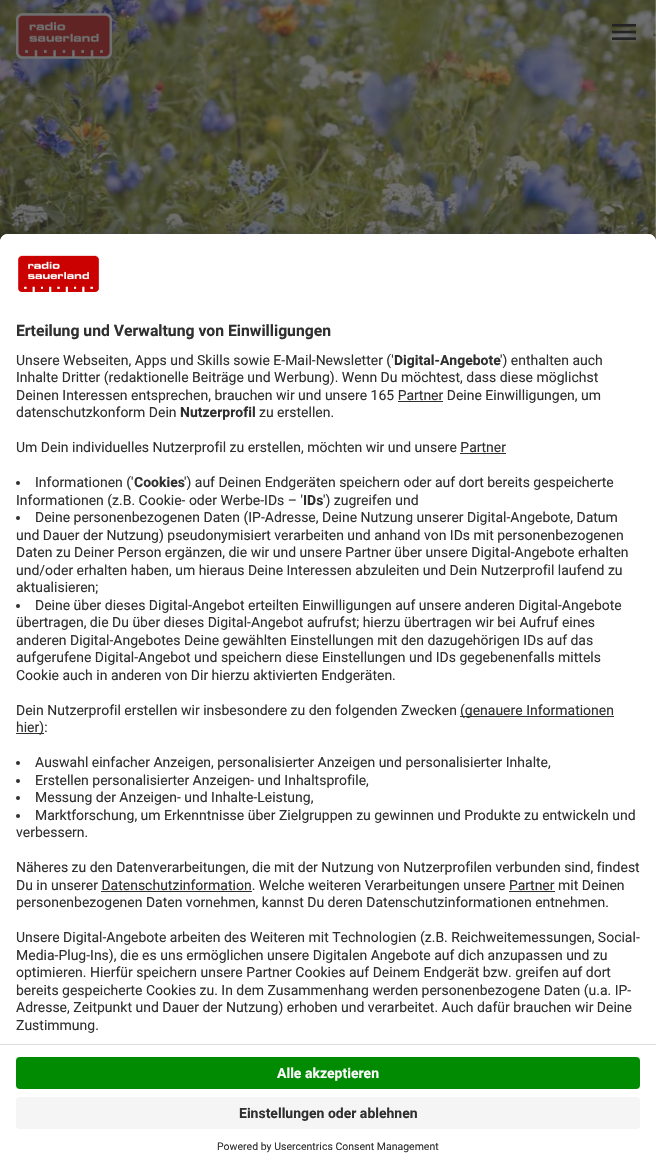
#include "include/core/SkBlurTypes.h"
#include "include/core/SkCanvas.h"
#include "include/core/SkData.h"
#include "include/core/SkFont.h"
#include "include/core/SkFontMgr.h"
#include "include/core/SkImage.h"
#include "include/core/SkMaskFilter.h"
#include "include/core/SkPaint.h"
#include "include/core/SkPathBuilder.h"
#include "include/core/SkTextBlob.h"
#include "include/effects/SkDashPathEffect.h"
#include "include/effects/SkGradientShader.h"
#include "include/utils/SkParsePath.h"

extern sk_sp<SkFontMgr> fontMgr;

void draw(SkCanvas* canvas) {
  SkPaint p;
  p.setAntiAlias(true);
  canvas->clear(SK_ColorWHITE);
  canvas->drawImageRect(SkImages::DeferredFromEncodedData(SkData::MakeFromFileName("images/1.png")), SkRect::MakeLTRB(0, 0, 656, 242), SkSamplingOptions());
  canvas->drawImageRect(SkImages::DeferredFromEncodedData(SkData::MakeFromFileName("images/2.png")), SkRect::MakeLTRB(16, 13, 112, 59), SkSamplingOptions());
  canvas->drawImageRect(SkImages::DeferredFromEncodedData(SkData::MakeFromFileName("images/3.png")), SkRect::MakeLTRB(612, 24, 636, 40), SkSamplingOptions());
  p.setColor(SkColorSetARGB(77, 0, 0, 0));
  p.setMaskFilter(SkMaskFilter::MakeBlur(kNormal_SkBlurStyle, 14));
  canvas->drawRoundRect(SkRect::MakeLTRB(0, 254, 656, 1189), 8, 8, p);
  p.setMaskFilter(nullptr);
  p.setColor(SkColorSetARGB(56, 0, 0, 0));
  p.setMaskFilter(SkMaskFilter::MakeBlur(kNormal_SkBlurStyle, 13));
  canvas->drawRoundRect(SkRect::MakeLTRB(0, 239, 656, 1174), 8, 8, p);
  p.setMaskFilter(nullptr);
  p.setColor(SK_ColorWHITE);
  canvas->drawPath(SkPathBuilder().moveTo(8, 234).lineTo(648, 234).cubicTo(652.5f, 234, 656, 237.5f, 656, 242).lineTo(656, 1169).lineTo(0, 1169).lineTo(0, 242).cubicTo(0, 237.5f, 3.5f, 234, 8, 234).close().detach(), p);
  canvas->drawPath(SkPathBuilder().moveTo(8, 234).lineTo(648, 234).cubicTo(652.5f, 234, 656, 237.5f, 656, 242).lineTo(656, 1044).lineTo(0, 1044).lineTo(0, 242).cubicTo(0, 237.5f, 3.5f, 234, 8, 234).close().detach(), p);
  canvas->drawImageRect(SkImages::DeferredFromEncodedData(SkData::MakeFromFileName("images/4.png")), SkRect::MakeLTRB(18, 255, 100, 292), SkSamplingOptions());
  p.setColor(SkColorSetRGB(48, 48, 48));
  canvas->drawRect(SkRect::MakeLTRB(398, 401, 443, 402), p);
  canvas->drawRect(SkRect::MakeLTRB(460, 453, 506, 454), p);
  canvas->drawCircle(18, 483, 2, p);
  canvas->drawCircle(18, 518, 2, p);
  canvas->drawCircle(18, 606, 2, p);
  canvas->drawRect(SkRect::MakeLTRB(460, 716, 614, 717), p);
  canvas->drawRect(SkRect::MakeLTRB(16, 733, 44, 734), p);
  canvas->drawCircle(18, 763, 2, p);
  canvas->drawCircle(18, 781, 2, p);
  canvas->drawCircle(18, 798, 2, p);
  canvas->drawCircle(18, 816, 2, p);
  canvas->drawRect(SkRect::MakeLTRB(101, 891, 252, 892), p);
  canvas->drawRect(SkRect::MakeLTRB(509, 891, 555, 892), p);
  p.setColor(SkColorSetRGB(221, 221, 221));
  canvas->drawRect(SkRect::MakeLTRB(0, 1044, 656, 1045), p);
  p.setColor(SkColorSetRGB(0, 139, 2));
  canvas->drawRoundRect(SkRect::MakeLTRB(16, 1057, 640, 1089), 4, 4, p);
  p.setColor(SkColorSetRGB(245, 245, 245));
  canvas->drawRoundRect(SkRect::MakeLTRB(16, 1097, 640, 1129), 4, 4, p);
  SkFont font1(fontMgr->matchFamilyStyle("Roboto", SkFontStyle::Bold()), 15.75f);
  font1.setSubpixel(true);
  p.setColor(SkColorSetRGB(48, 48, 48));
  canvas->drawString("Erteilung und Verwaltung von Einwilligungen", 16, 336, font1, p);
  SkFont font2(fontMgr->matchFamilyStyle("Roboto", SkFontStyle::Normal()), 14);
  font2.setSubpixel(true);
  canvas->drawString("Unsere Webseiten, Apps und Skills sowie E-Mail-Newsletter ('", 16, 365, font2, p);
  SkFont font3(fontMgr->matchFamilyStyle("Roboto", SkFontStyle::Bold()), 14);
  font3.setSubpixel(true);
  canvas->drawString("Digital-Angebote", 394, 365, font3, p);
  canvas->drawString("') enthalten auch", 500, 365, font2, p);
  canvas->drawString("Inhalte Dritter (redaktionelle Beiträge und Werbung). Wenn Du möchtest, dass diese möglichst", 16, 382, font2, p);
  canvas->drawString("Deinen Interessen entsprechen, brauchen wir und unsere 165 Partner Deine Einwilligungen, um", 16, 400, font2, p);
  canvas->drawString("datenschutzkonform Dein", 16, 417, font2, p);
  canvas->drawString("Nutzerprofil", 180, 417, font3, p);
  canvas->drawString("zu erstellen.", 259, 417, font2, p);
  canvas->drawString("Um Dein individuelles Nutzerprofil zu erstellen, möchten wir und unsere Partner", 16, 452, font2, p);
  canvas->drawString("Informationen ('", 35, 487, font2, p);
  canvas->drawString("Cookies", 134, 487, font3, p);
  canvas->drawString("') auf Deinen Endgeräten speichern oder auf dort bereits gespeicherte", 184, 487, font2, p);
  canvas->drawString("Informationen (z.B. Cookie- oder Werbe-IDs – '", 16, 505, font2, p);
  canvas->drawString("IDs", 303, 505, font3, p);
  canvas->drawString("') zugreifen und", 323, 505, font2, p);
  canvas->drawString("Deine personenbezogenen Daten (IP-Adresse, Deine Nutzung unserer Digital-Angebote, Datum", 35, 522, font2, p);
  canvas->drawString("und Dauer der Nutzung) pseudonymisiert verarbeiten und anhand von IDs mit personenbezogenen", 16, 540, font2, p);
  canvas->drawString("Daten zu Deiner Person ergänzen, die wir und unsere Partner über unsere Digital-Angebote erhalten", 16, 557, font2, p);
  canvas->drawString("und/oder erhalten haben, um hieraus Deine Interessen abzuleiten und Dein Nutzerprofil laufend zu", 16, 575, font2, p);
  canvas->drawString("aktualisieren;", 16, 592, font2, p);
  canvas->drawString("Deine über dieses Digital-Angebot erteilten Einwilligungen auf unsere anderen Digital-Angebote", 35, 610, font2, p);
  canvas->drawString("übertragen, die Du über dieses Digital-Angebot aufrufst; hierzu übertragen wir bei Aufruf eines", 16, 627, font2, p);
  canvas->drawString("anderen Digital-Angebotes Deine gewählten Einstellungen mit den dazugehörigen IDs auf das", 16, 645, font2, p);
  canvas->drawString("aufgerufene Digital-Angebot und speichern diese Einstellungen und IDs gegebenenfalls mittels", 16, 662, font2, p);
  canvas->drawString("Cookie auch in anderen von Dir hierzu aktivierten Endgeräten.", 16, 680, font2, p);
  canvas->drawString("Dein Nutzerprofil erstellen wir insbesondere zu den folgenden Zwecken", 16, 715, font2, p);
  canvas->drawString("(genauere Informationen", 460, 715, font2, p);
  canvas->drawString("hier):", 16, 732, font2, p);
  canvas->drawString("Auswahl einfacher Anzeigen, personalisierter Anzeigen und personalisierter Inhalte,", 35, 767, font2, p);
  canvas->drawString("Erstellen personalisierter Anzeigen- und Inhaltsprofile,", 35, 785, font2, p);
  canvas->drawString("Messung der Anzeigen- und Inhalte-Leistung,", 35, 802, font2, p);
  canvas->drawString("Marktforschung, um Erkenntnisse über Zielgruppen zu gewinnen und Produkte zu entwickeln und", 35, 820, font2, p);
  canvas->drawString("verbessern.", 16, 837, font2, p);
  canvas->drawString("Näheres zu den Datenverarbeitungen, die mit der Nutzung von Nutzerprofilen verbunden sind, findest", 16, 872, font2, p);
  canvas->drawString("Du in unserer Datenschutzinformation. Welche weiteren Verarbeitungen unsere Partner mit Deinen", 16, 890, font2, p);
  canvas->drawString("personenbezogenen Daten vornehmen, kannst Du deren Datenschutzinformationen entnehmen.", 16, 907, font2, p);
  canvas->drawString("Unsere Digital-Angebote arbeiten des Weiteren mit Technologien (z.B. Reichweitemessungen, Social-", 16, 942, font2, p);
  canvas->drawString("Media-Plug-Ins), die es uns ermöglichen unsere Digitalen Angebote auf dich anzupassen und zu", 16, 960, font2, p);
  canvas->drawString("optimieren. Hierfür speichern unsere Partner Cookies auf Deinem Endgerät bzw. greifen auf dort", 16, 977, font2, p);
  canvas->drawString("bereits gespeicherte Cookies zu. In dem Zusammenhang werden personenbezogene Daten (u.a. IP-", 16, 995, font2, p);
  canvas->drawString("Adresse, Zeitpunkt und Dauer der Nutzung) erhoben und verarbeitet. Auch dafür brauchen wir Deine", 16, 1012, font2, p);
  canvas->drawString("Zustimmung.", 16, 1030, font2, p);
  p.setColor(SkColorSetRGB(250, 250, 250));
  canvas->drawString("Alle akzeptieren", 277, 1078, font3, p);
  p.setColor(SkColorSetRGB(48, 48, 48));
  canvas->drawString("Einstellungen oder ablehnen", 239, 1118, font3, p);
  SkFont font4(fontMgr->matchFamilyStyle("Roboto", SkFontStyle::Normal()), 10.5f);
  font4.setSubpixel(true);
  canvas->drawString("Powered by Usercentrics Consent Management", 217, 1150, font4, p);
}
